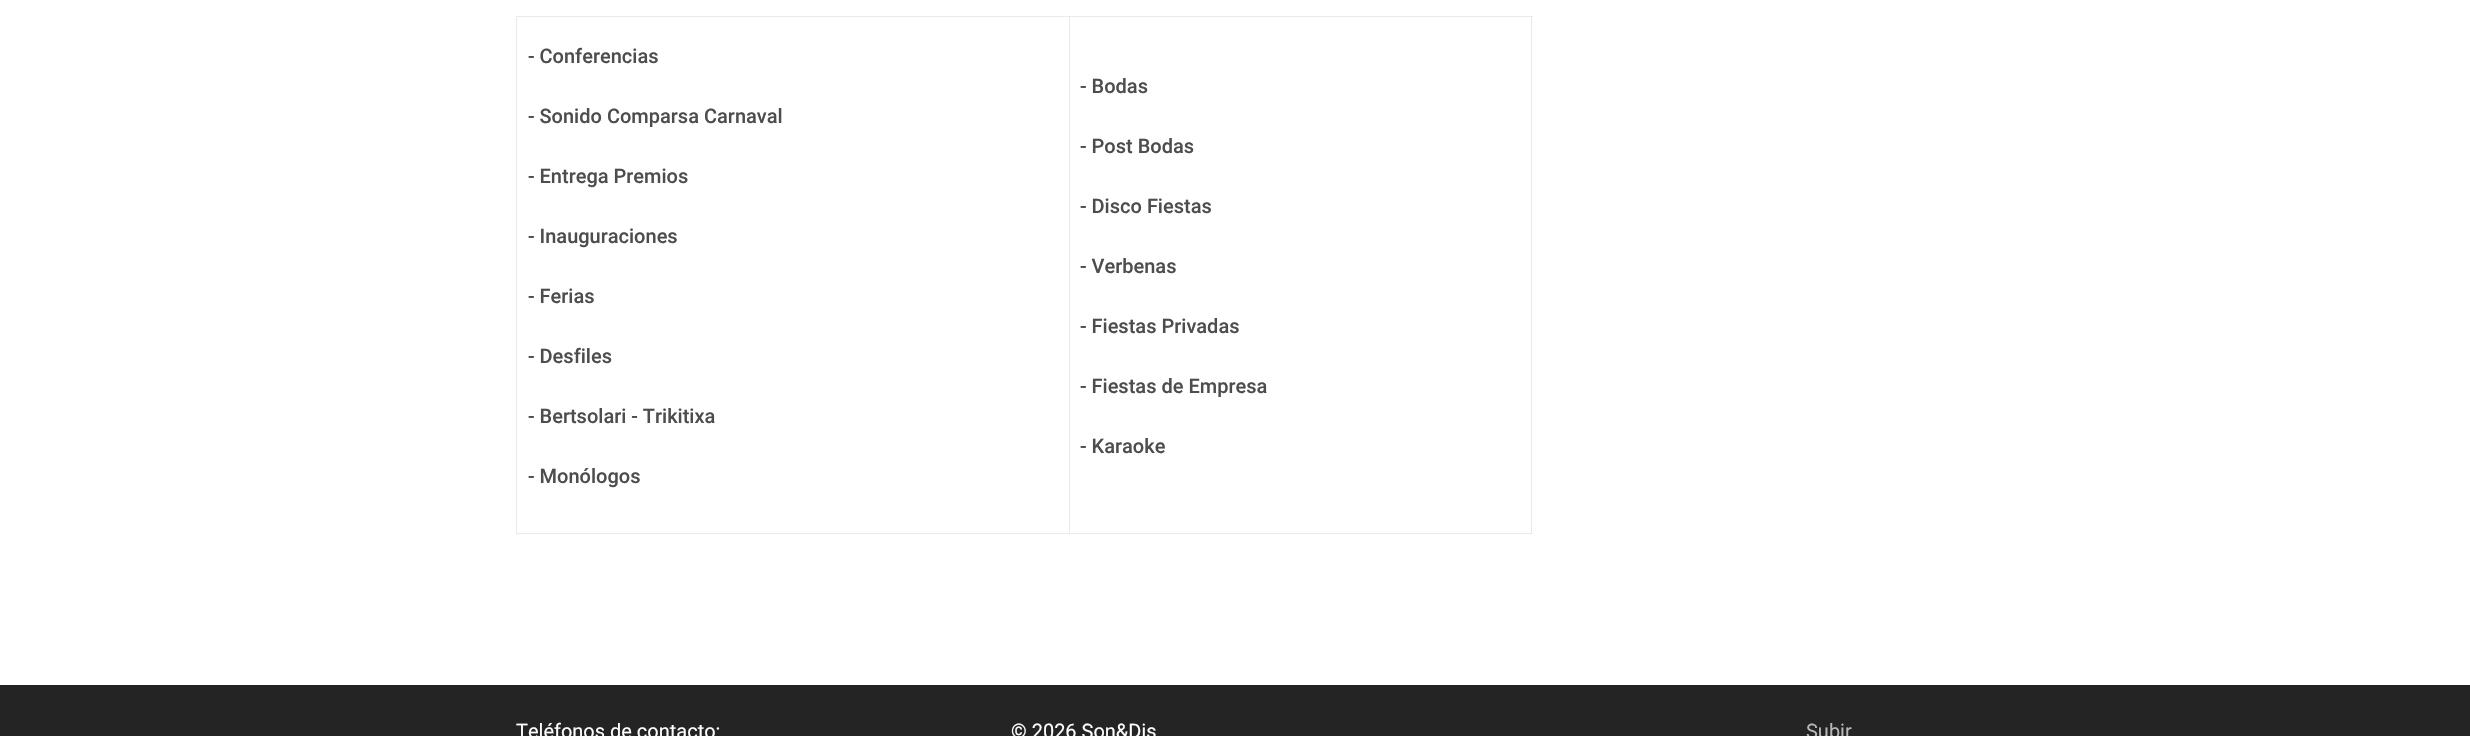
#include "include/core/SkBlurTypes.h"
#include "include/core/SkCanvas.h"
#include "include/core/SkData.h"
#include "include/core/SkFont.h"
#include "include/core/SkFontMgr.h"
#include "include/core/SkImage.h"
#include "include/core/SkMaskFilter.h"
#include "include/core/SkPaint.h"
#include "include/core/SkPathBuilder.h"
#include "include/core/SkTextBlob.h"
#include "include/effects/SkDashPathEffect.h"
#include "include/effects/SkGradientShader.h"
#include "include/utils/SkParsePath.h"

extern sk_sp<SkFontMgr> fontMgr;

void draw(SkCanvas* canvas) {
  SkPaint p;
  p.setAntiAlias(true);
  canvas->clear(SK_ColorWHITE);
  p.setColor(SkColorSetRGB(234, 234, 234));
  canvas->drawRect(SkRect::MakeLTRB(516, 16, 1533, 17), p);
  canvas->drawRect(SkRect::MakeLTRB(1531, 16, 1532, 534), p);
  canvas->drawRect(SkRect::MakeLTRB(516, 533, 1533, 534), p);
  canvas->drawRect(SkRect::MakeLTRB(516, 16, 517, 534), p);
  canvas->drawRect(SkRect::MakeLTRB(1069, 16, 1070, 534), p);
  p.setColor(SkColorSetRGB(36, 36, 36));
  canvas->drawRect(SkRect::MakeLTRB(0, 686, 2470, 736), p);
  p.setColor(SkColorSetRGB(34, 34, 34));
  canvas->drawRect(SkRect::MakeLTRB(0, 685, 2470, 686), p);
  SkFont font1(fontMgr->matchFamilyStyle("Roboto", SkFontStyle(500, SkFontStyle::kNormal_Width, SkFontStyle::kUpright_Slant)), 20);
  font1.setSubpixel(true);
  p.setColor(SkColorSetRGB(77, 77, 77));
  canvas->drawString("- Conferencias", 528, 63, font1, p);
  canvas->drawString("- Sonido Comparsa Carnaval", 528, 123, font1, p);
  canvas->drawString("- Entrega Premios", 528, 183, font1, p);
  canvas->drawString("- Inauguraciones", 528, 243, font1, p);
  canvas->drawString("- Ferias", 528, 303, font1, p);
  canvas->drawString("- Desfiles", 528, 363, font1, p);
  canvas->drawString("- Bertsolari - Trikitixa", 528, 423, font1, p);
  canvas->drawString("- Monólogos", 528, 483, font1, p);
  canvas->drawString("- Bodas", 1080, 93, font1, p);
  canvas->drawString("- Post Bodas", 1080, 153, font1, p);
  canvas->drawString("- Disco Fiestas", 1080, 213, font1, p);
  canvas->drawString("- Verbenas", 1080, 273, font1, p);
  canvas->drawString("- Fiestas Privadas", 1080, 333, font1, p);
  canvas->drawString("- Fiestas de Empresa", 1080, 393, font1, p);
  canvas->drawString("- Karaoke", 1080, 453, font1, p);
  SkFont font2(fontMgr->matchFamilyStyle("Roboto", SkFontStyle::Normal()), 20);
  font2.setSubpixel(true);
  p.setColor(SK_ColorWHITE);
  canvas->drawString("Teléfonos de contacto:", 516, 738, font2, p);
  canvas->drawString("© 2026 Son&Djs", 1011, 738, font2, p);
  p.setColor(SkColorSetRGB(184, 184, 184));
  canvas->drawString("Subir", 1806, 738, font2, p);
}
